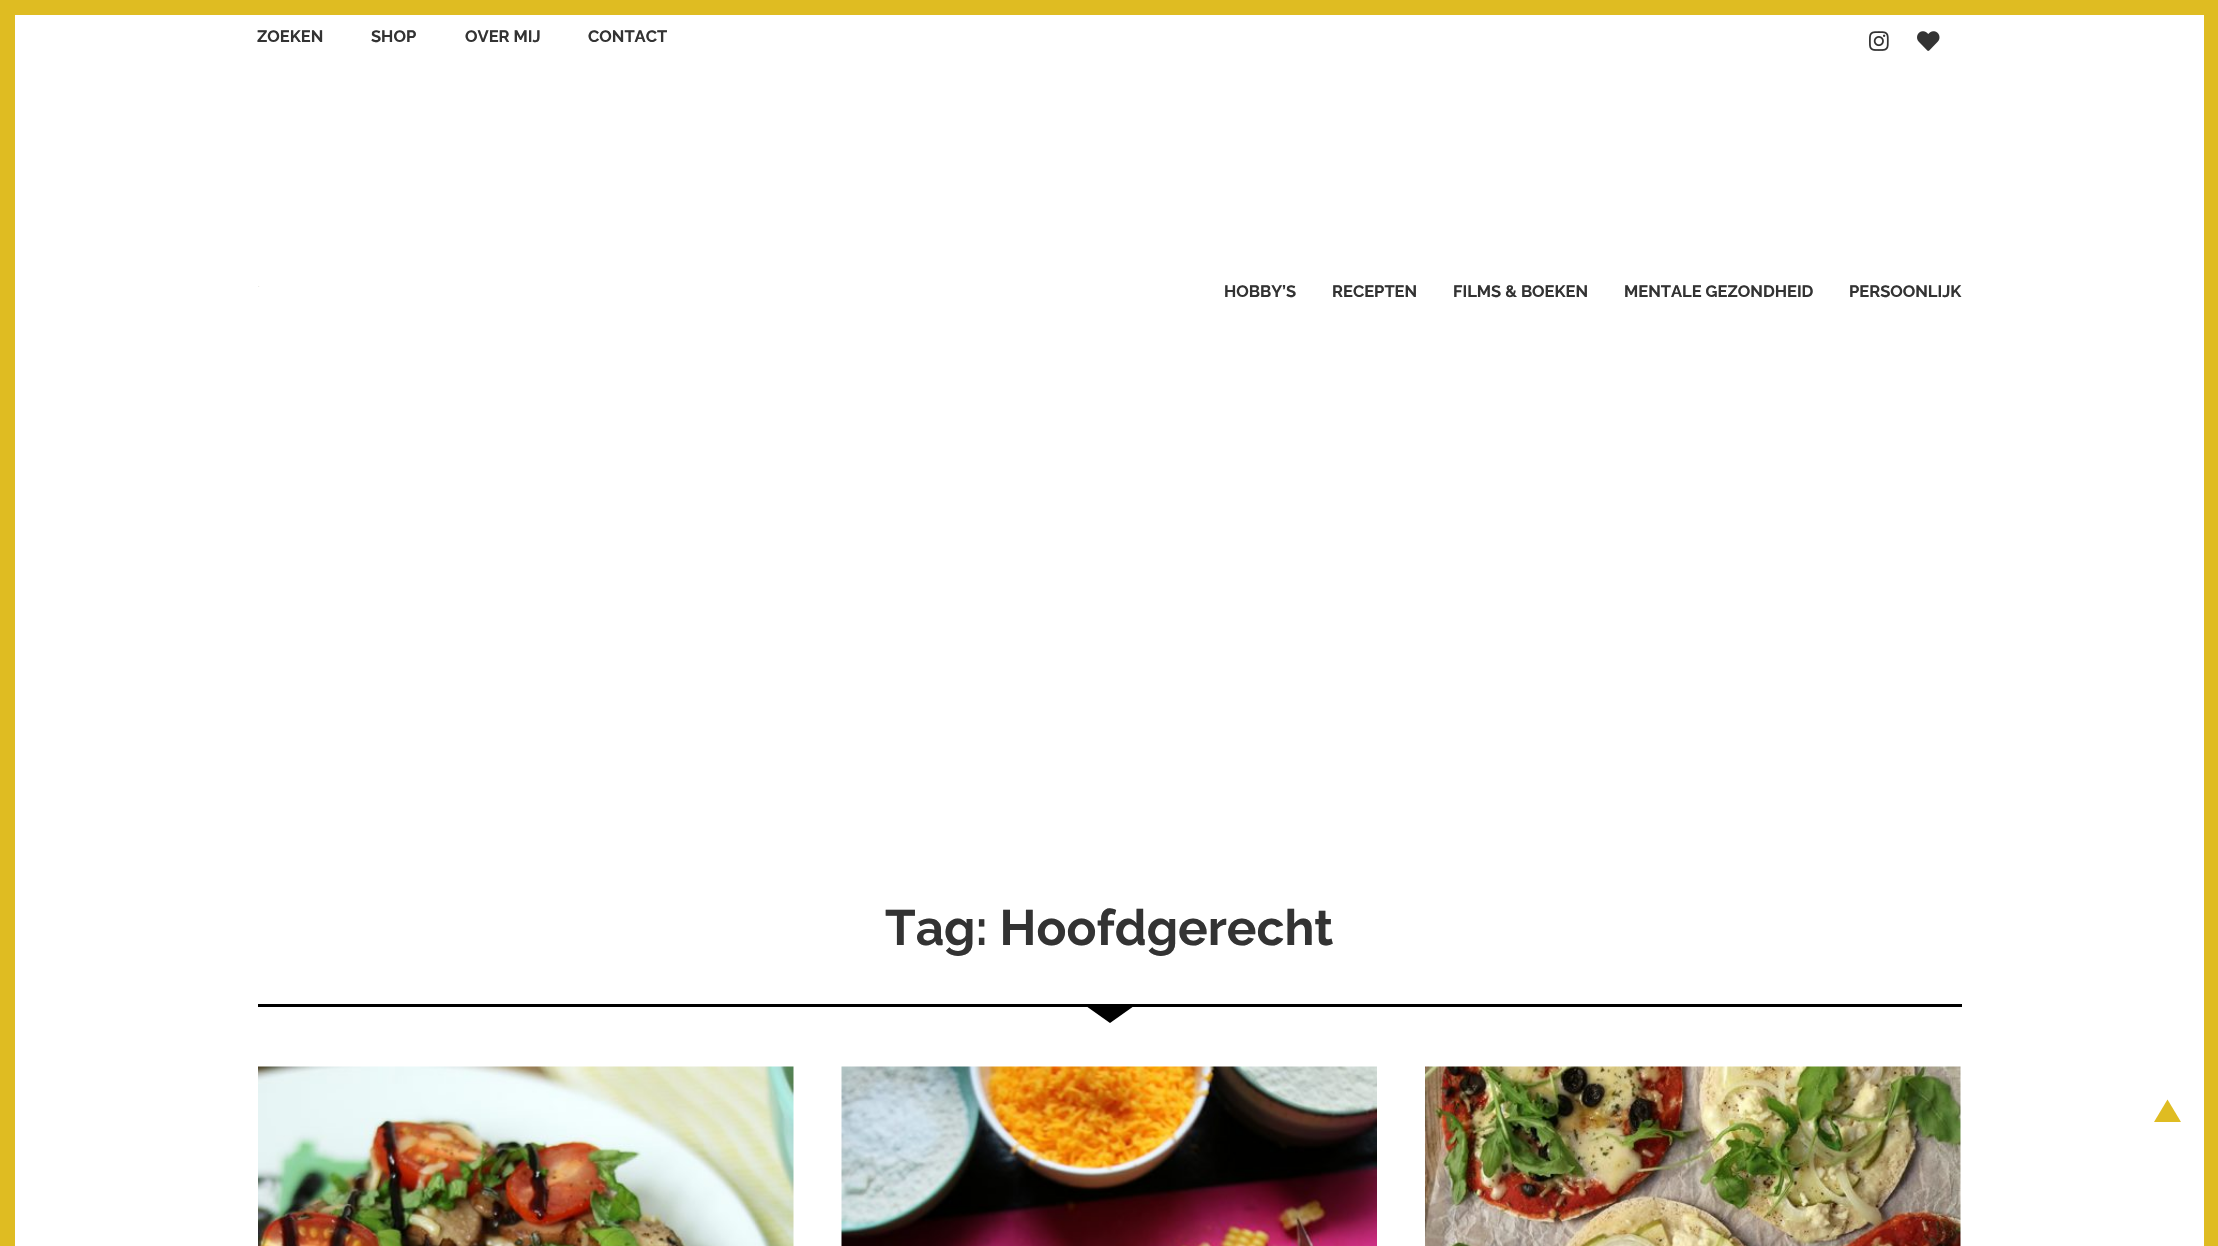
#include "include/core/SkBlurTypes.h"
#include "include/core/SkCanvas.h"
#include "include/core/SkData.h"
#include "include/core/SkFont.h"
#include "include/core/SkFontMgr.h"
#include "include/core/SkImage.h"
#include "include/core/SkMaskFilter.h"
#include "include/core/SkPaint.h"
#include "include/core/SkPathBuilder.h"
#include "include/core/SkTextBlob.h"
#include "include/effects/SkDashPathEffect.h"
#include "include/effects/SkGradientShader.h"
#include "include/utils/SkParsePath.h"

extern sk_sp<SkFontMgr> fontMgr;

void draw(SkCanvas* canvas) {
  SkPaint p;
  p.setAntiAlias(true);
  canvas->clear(SK_ColorWHITE);
  p.setStyle(SkPaint::kStroke_Style);
  p.setStrokeWidth(15);
  p.setColor(SkColorSetRGB(223, 188, 34));
  canvas->drawRect(SkRect::MakeLTRB(7.5f, 7.5f, 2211.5f, 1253.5f), p);
  canvas->drawImageRect(SkImages::DeferredFromEncodedData(SkData::MakeFromFileName("images/1.png")), SkRect::MakeLTRB(1869, 31, 1889, 51), SkSamplingOptions());
  canvas->drawImageRect(SkImages::DeferredFromEncodedData(SkData::MakeFromFileName("images/2.png")), SkRect::MakeLTRB(1917, 31, 1940, 51), SkSamplingOptions());
  canvas->drawImageRect(SkImages::DeferredFromEncodedData(SkData::MakeFromFileName("images/3.png")), SkRect::MakeLTRB(258, 286, 260, 287), SkSamplingOptions());
  p.setStyle(SkPaint::kFill_Style);
  p.setColor(SK_ColorBLACK);
  canvas->drawRect(SkRect::MakeLTRB(258, 1004, 1962, 1007), p);
  canvas->drawPath(SkPathBuilder().moveTo(1086, 1006).lineTo(1134, 1006).lineTo(1110, 1023).close().detach(), p);
  canvas->drawImageRect(SkImages::DeferredFromEncodedData(SkData::MakeFromFileName("images/4.png")), SkRect::MakeLTRB(258, 1066, 794, 1246), SkSamplingOptions());
  canvas->drawImageRect(SkImages::DeferredFromEncodedData(SkData::MakeFromFileName("images/5.png")), SkRect::MakeLTRB(841, 1066, 1377, 1246), SkSamplingOptions());
  canvas->drawImageRect(SkImages::DeferredFromEncodedData(SkData::MakeFromFileName("images/6.png")), SkRect::MakeLTRB(1425, 1066, 1961, 1246), SkSamplingOptions());
  p.setColor(SkColorSetRGB(223, 188, 34));
  canvas->drawPath(SkPathBuilder().moveTo(2181, 1122).lineTo(2154, 1122).lineTo(2167.5f, 1099.5f).close().detach(), p);
  SkFont font1(fontMgr->matchFamilyStyle("Raleway", SkFontStyle::Bold()), 16.5f);
  font1.setSubpixel(true);
  p.setColor(SkColorSetRGB(51, 51, 51));
  canvas->drawString("ZOEKEN", 257, 42, font1, p);
  canvas->drawString("SHOP", 371, 42, font1, p);
  canvas->drawString("OVER MIJ", 465, 42, font1, p);
  canvas->drawString("CONTACT", 588, 42, font1, p);
  canvas->drawString("HOBBY’S", 1224, 297, font1, p);
  canvas->drawString("RECEPTEN", 1332, 297, font1, p);
  canvas->drawString("FILMS & BOEKEN", 1453, 297, font1, p);
  canvas->drawString("MENTALE GEZONDHEID", 1624, 297, font1, p);
  canvas->drawString("PERSOONLIJK", 1849, 297, font1, p);
  SkFont font2(fontMgr->matchFamilyStyle("Raleway", SkFontStyle::Bold()), 49.5f);
  font2.setSubpixel(true);
  canvas->drawString("Tag: Hoofdgerecht", 885, 945, font2, p);
}
